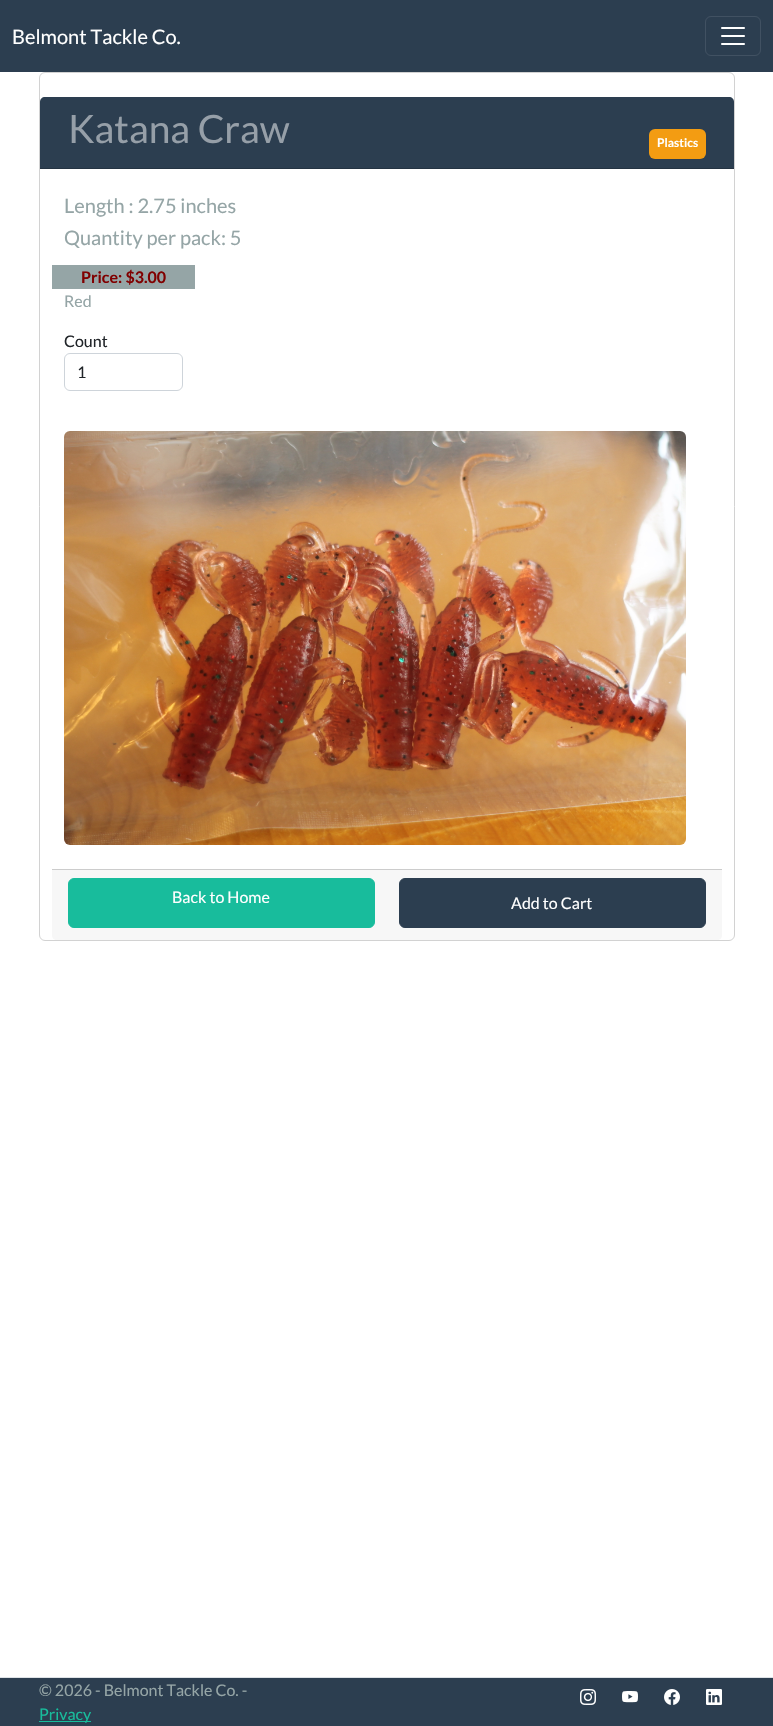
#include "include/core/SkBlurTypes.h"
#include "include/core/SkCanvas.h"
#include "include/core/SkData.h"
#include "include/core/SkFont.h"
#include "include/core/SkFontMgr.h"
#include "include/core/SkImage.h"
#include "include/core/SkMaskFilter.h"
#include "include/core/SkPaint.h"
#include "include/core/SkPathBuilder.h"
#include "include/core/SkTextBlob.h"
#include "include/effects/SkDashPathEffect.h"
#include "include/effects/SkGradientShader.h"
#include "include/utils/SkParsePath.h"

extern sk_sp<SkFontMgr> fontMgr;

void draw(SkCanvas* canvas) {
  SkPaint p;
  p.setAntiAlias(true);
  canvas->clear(SK_ColorWHITE);
  p.setColor(SkColorSetRGB(44, 62, 80));
  canvas->drawRect(SkRect::MakeLTRB(0, 0, 773, 72), p);
  p.setStyle(SkPaint::kStroke_Style);
  p.setStrokeWidth(1);
  p.setColor(SkColorSetRGB(65, 81, 98));
  canvas->drawRoundRect(SkRect::MakeLTRB(705.5f, 16.5f, 760.5f, 55.5f), 5.5f, 5.5f, p);
  canvas->drawImageRect(SkImages::DeferredFromEncodedData(SkData::MakeFromFileName("images/1.png")), SkRect::MakeLTRB(721, 27, 745, 45), SkSamplingOptions());
  p.setColor(SkColorSetRGB(210, 210, 210));
  canvas->drawRoundRect(SkRect::MakeLTRB(39.5f, 72.5f, 734.5f, 940.5f), 5.5f, 5.5f, p);
  p.setStyle(SkPaint::kFill_Style);
  p.setColor(SkColorSetRGB(44, 62, 80));
  canvas->drawPath(SkPathBuilder().moveTo(45, 97).lineTo(729, 97).cubicTo(732, 97, 734, 99, 734, 102).lineTo(734, 169).lineTo(40, 169).lineTo(40, 102).cubicTo(40, 99, 42, 97, 45, 97).close().detach(), p);
  p.setColor(SkColorSetRGB(36, 51, 66));
  canvas->drawRect(SkRect::MakeLTRB(40, 168, 734, 169), p);
  p.setColor(SkColorSetRGB(243, 156, 18));
  canvas->drawRoundRect(SkRect::MakeLTRB(649, 129, 706, 159), 6, 6, p);
  p.setColor(SkColorSetRGB(149, 165, 166));
  canvas->drawRect(SkRect::MakeLTRB(52, 265, 195, 289), p);
  p.setStyle(SkPaint::kStroke_Style);
  p.setColor(SkColorSetRGB(206, 212, 218));
  canvas->drawRoundRect(SkRect::MakeLTRB(64.5f, 353.5f, 182.5f, 390.5f), 5.5f, 5.5f, p);
  canvas->drawImageRect(SkImages::DeferredFromEncodedData(SkData::MakeFromFileName("images/2.png")), SkRect::MakeLTRB(64, 431, 686, 845), SkSamplingOptions());
  p.setStyle(SkPaint::kFill_Style);
  p.setColor(SkColorSetRGB(247, 247, 247));
  canvas->drawPath(SkPathBuilder().moveTo(52, 869).lineTo(722, 869).lineTo(722, 935).cubicTo(722, 938, 720, 940, 717, 940).lineTo(57, 940).cubicTo(54, 940, 52, 938, 52, 935).close().detach(), p);
  p.setColor(SkColorSetRGB(204, 204, 204));
  canvas->drawRect(SkRect::MakeLTRB(52, 869, 722, 870), p);
  p.setColor(SkColorSetRGB(24, 188, 156));
  canvas->drawRoundRect(SkRect::MakeLTRB(68.5f, 878.5f, 374.5f, 927.5f), 5.5f, 5.5f, p);
  p.setStyle(SkPaint::kStroke_Style);
  canvas->drawRoundRect(SkRect::MakeLTRB(68.5f, 878.5f, 374.5f, 927.5f), 5.5f, 5.5f, p);
  p.setStyle(SkPaint::kFill_Style);
  p.setColor(SkColorSetRGB(44, 62, 80));
  canvas->drawRoundRect(SkRect::MakeLTRB(399.5f, 878.5f, 705.5f, 927.5f), 5.5f, 5.5f, p);
  p.setStyle(SkPaint::kStroke_Style);
  canvas->drawRoundRect(SkRect::MakeLTRB(399.5f, 878.5f, 705.5f, 927.5f), 5.5f, 5.5f, p);
  p.setStyle(SkPaint::kFill_Style);
  canvas->drawRect(SkRect::MakeLTRB(0, 1678, 773, 1726), p);
  p.setColor(SkColorSetRGB(222, 226, 230));
  canvas->drawRect(SkRect::MakeLTRB(0, 1677, 773, 1678), p);
  p.setColor(SkColorSetRGB(24, 188, 156));
  canvas->drawRect(SkRect::MakeLTRB(39, 1721, 91, 1722), p);
  canvas->drawImageRect(SkImages::DeferredFromEncodedData(SkData::MakeFromFileName("images/3.png")), SkRect::MakeLTRB(580, 1689, 596, 1705), SkSamplingOptions());
  canvas->drawImageRect(SkImages::DeferredFromEncodedData(SkData::MakeFromFileName("images/4.png")), SkRect::MakeLTRB(622, 1691, 638, 1703), SkSamplingOptions());
  canvas->drawImageRect(SkImages::DeferredFromEncodedData(SkData::MakeFromFileName("images/5.png")), SkRect::MakeLTRB(664, 1689, 680, 1705), SkSamplingOptions());
  canvas->drawImageRect(SkImages::DeferredFromEncodedData(SkData::MakeFromFileName("images/6.png")), SkRect::MakeLTRB(706, 1689, 722, 1705), SkSamplingOptions());
  SkFont font1(fontMgr->matchFamilyStyle("Lato", SkFontStyle::Normal()), 20);
  font1.setSubpixel(true);
  p.setColor(SK_ColorWHITE);
  canvas->drawString("Belmont Tackle Co.", 12, 44, font1, p);
  SkFont font2(fontMgr->matchFamilyStyle("Lato", SkFontStyle::Normal()), 39);
  font2.setSubpixel(true);
  p.setColor(SkColorSetRGB(150, 159, 168));
  canvas->drawString("Katana Craw", 68, 143, font2, p);
  SkFont font3(fontMgr->matchFamilyStyle("Lato", SkFontStyle::Bold()), 12);
  font3.setSubpixel(true);
  p.setColor(SK_ColorWHITE);
  canvas->drawString("Plastics", 657, 147, font3, p);
  p.setColor(SkColorSetRGB(149, 165, 166));
  canvas->drawString("Length : 2.75 inches", 64, 213, font1, p);
  canvas->drawString("Quantity per pack: 5", 64, 245, font1, p);
  SkFont font4(fontMgr->matchFamilyStyle("Lato", SkFontStyle::Bold()), 16);
  font4.setSubpixel(true);
  p.setColor(SkColorSetRGB(128, 0, 0));
  canvas->drawString("Price: $3.00", 81, 283, font4, p);
  SkFont font5(fontMgr->matchFamilyStyle("Lato", SkFontStyle::Normal()), 16);
  font5.setSubpixel(true);
  p.setColor(SkColorSetRGB(149, 165, 166));
  canvas->drawString("Red", 64, 307, font5, p);
  p.setColor(SkColorSetRGB(33, 37, 41));
  canvas->drawString("Count", 64, 347, font5, p);
  canvas->drawString("1", 77, 378, font5, p);
  p.setColor(SK_ColorWHITE);
  canvas->drawString("Back to Home", 172, 903, font5, p);
  canvas->drawString("Add to Cart", 511, 909, font5, p);
  p.setColor(SkColorSetRGB(149, 165, 166));
  canvas->drawString("© 2026 - Belmont Tackle Co. -", 39, 1696, font5, p);
  p.setColor(SkColorSetRGB(24, 188, 156));
  canvas->drawString("Privacy", 39, 1720, font5, p);
}
